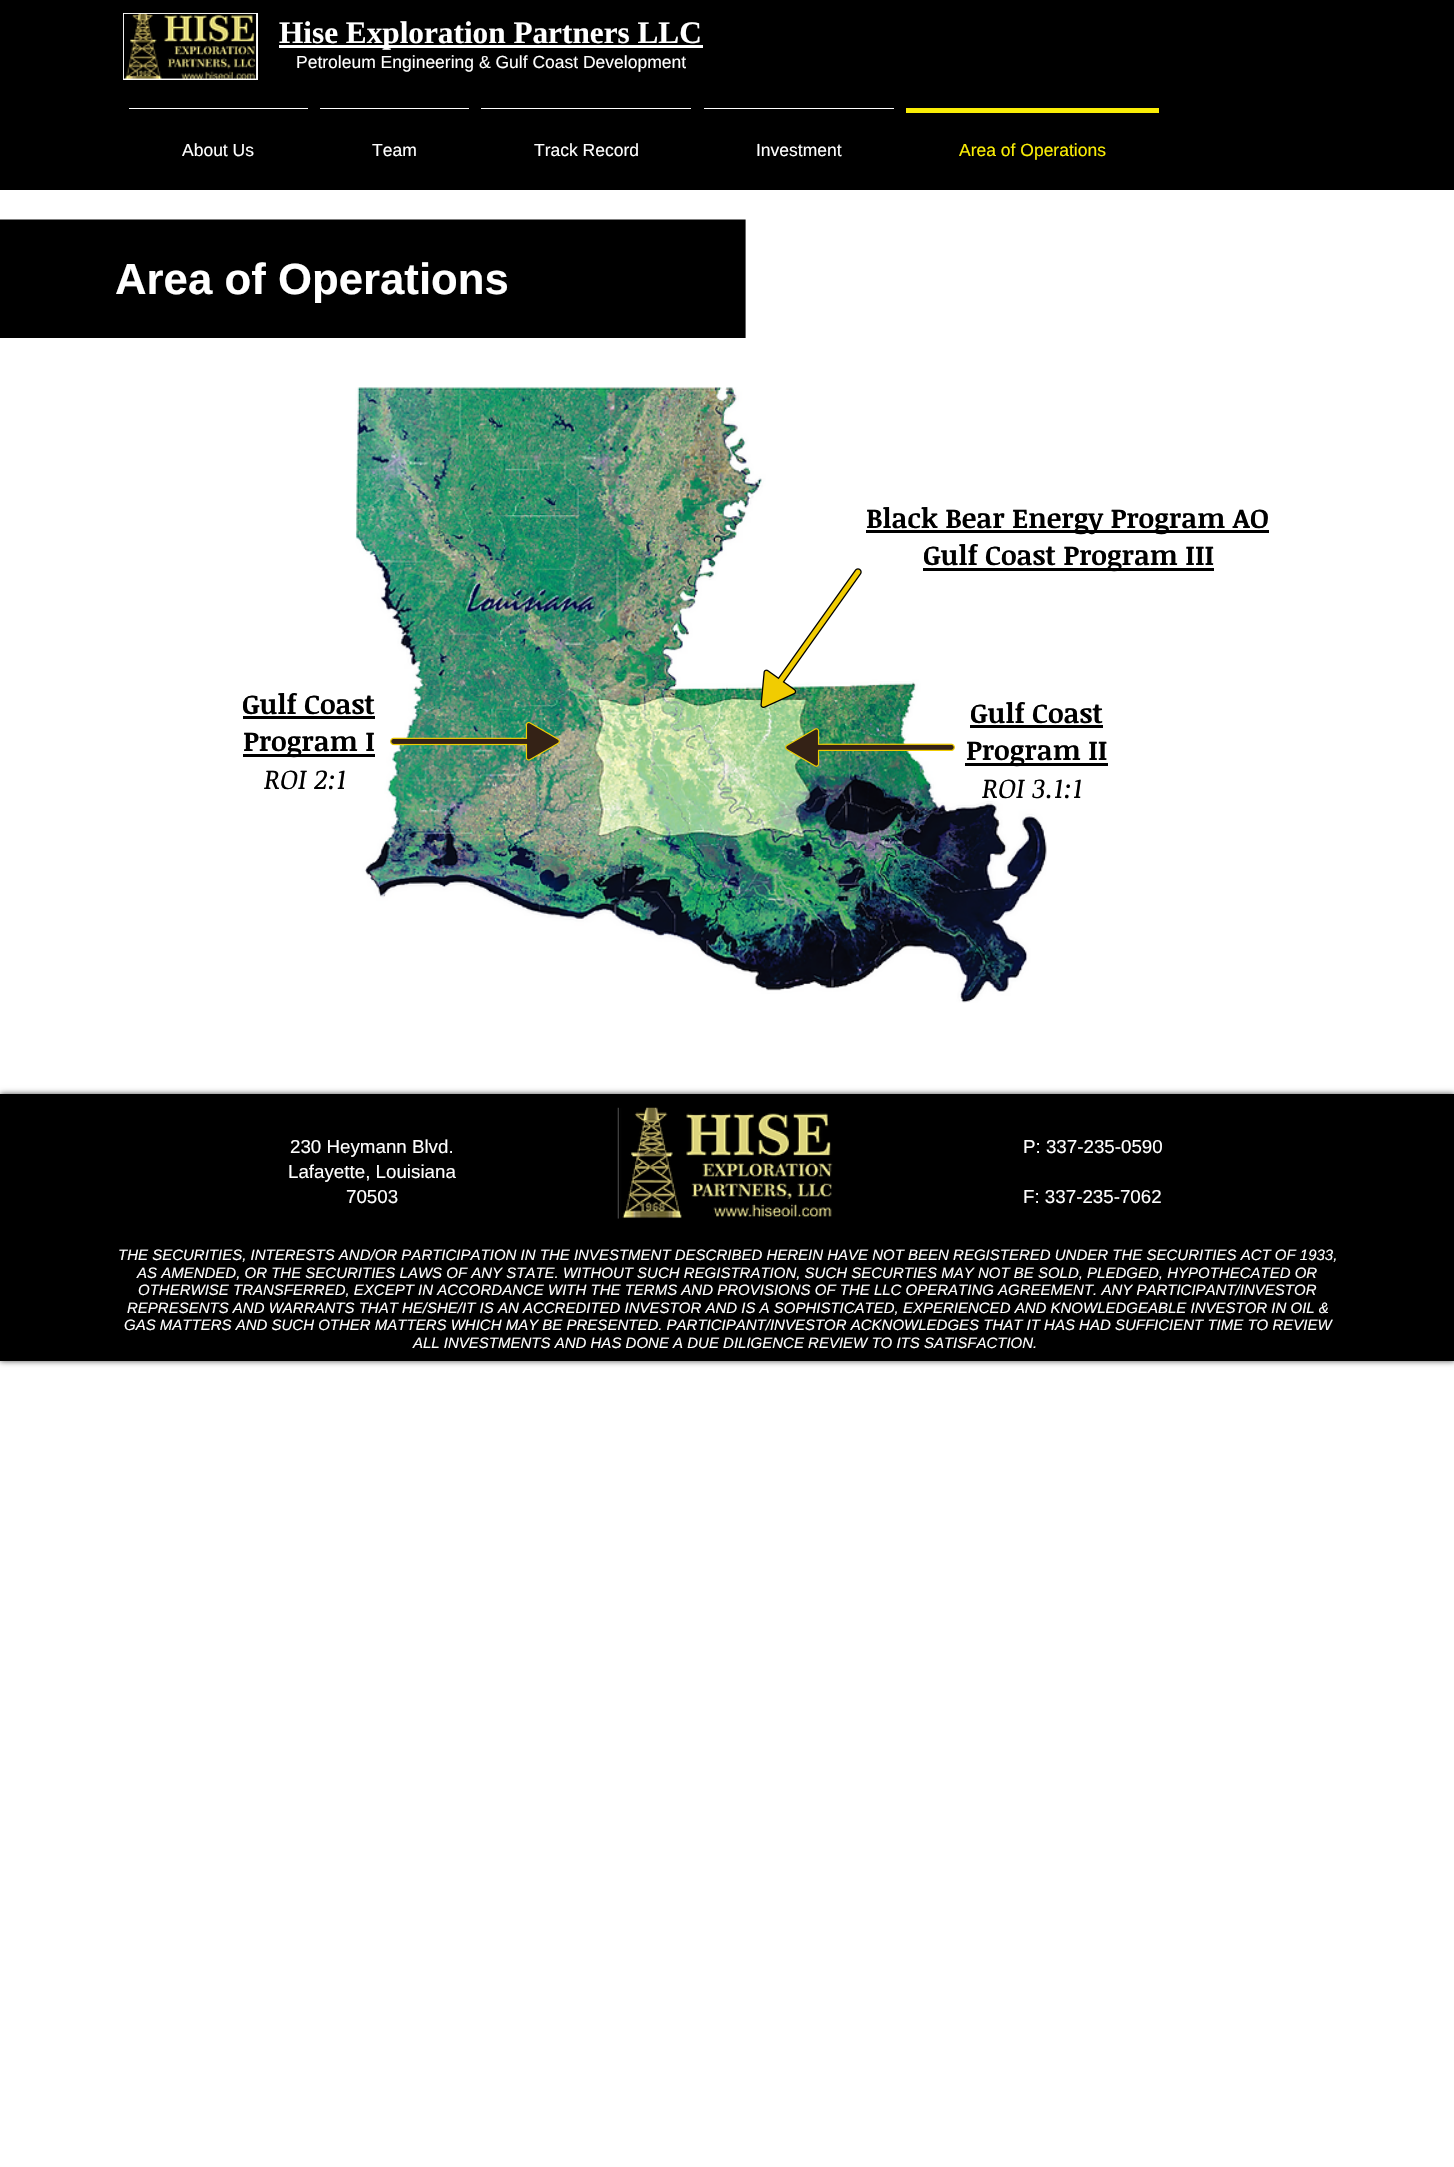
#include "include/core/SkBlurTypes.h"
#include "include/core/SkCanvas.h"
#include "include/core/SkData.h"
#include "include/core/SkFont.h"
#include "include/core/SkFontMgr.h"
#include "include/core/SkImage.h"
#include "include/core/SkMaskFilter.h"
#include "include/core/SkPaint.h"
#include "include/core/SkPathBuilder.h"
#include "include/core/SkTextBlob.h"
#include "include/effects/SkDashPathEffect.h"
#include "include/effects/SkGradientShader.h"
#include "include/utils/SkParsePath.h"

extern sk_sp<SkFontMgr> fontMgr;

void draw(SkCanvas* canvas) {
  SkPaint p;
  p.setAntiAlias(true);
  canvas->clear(SK_ColorWHITE);
  p.setColor(SK_ColorBLACK);
  canvas->drawRect(SkRect::MakeLTRB(0, 0, 1454, 190), p);
  p.setColor(SK_ColorWHITE);
  canvas->drawRect(SkRect::MakeLTRB(123, 13, 258, 80), p);
  canvas->drawImageRect(SkImages::DeferredFromEncodedData(SkData::MakeFromFileName("images/1.png")), SkRect::MakeLTRB(123, 13, 257, 79), SkSamplingOptions());
  canvas->drawRect(SkRect::MakeLTRB(279, 45, 703, 48), p);
  canvas->drawRect(SkRect::MakeLTRB(129, 108, 308, 109), p);
  canvas->drawRect(SkRect::MakeLTRB(320, 108, 469, 109), p);
  canvas->drawRect(SkRect::MakeLTRB(481, 108, 691, 109), p);
  canvas->drawRect(SkRect::MakeLTRB(704, 108, 894, 109), p);
  p.setColor(SkColorSetRGB(250, 237, 5));
  canvas->drawRect(SkRect::MakeLTRB(906, 108, 1159, 113), p);
  p.setColor(SK_ColorBLACK);
  canvas->drawRect(SkRect::MakeLTRB(0, 220, 745, 337), p);
  p.setStyle(SkPaint::kStroke_Style);
  p.setStrokeWidth(1.2f);
  canvas->drawPath(SkPathBuilder().moveTo(745, 220).lineTo(745, 337.5f).lineTo(-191.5f, 337.5f).lineTo(-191.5f, 220).close().detach(), p);
  canvas->drawImageRect(SkImages::DeferredFromEncodedData(SkData::MakeFromFileName("images/2.png")), SkRect::MakeLTRB(355, 387, 1047, 1003), SkSamplingOptions());
  p.setStyle(SkPaint::kFill_Style);
  canvas->drawRect(SkRect::MakeLTRB(866, 530, 1269, 533), p);
  canvas->drawRect(SkRect::MakeLTRB(923, 568, 1214, 571), p);
  canvas->drawImageRect(SkImages::DeferredFromEncodedData(SkData::MakeFromFileName("images/3.png")), SkRect::MakeLTRB(760, 568, 862, 708), SkSamplingOptions());
  canvas->drawRect(SkRect::MakeLTRB(243, 716, 375, 719), p);
  canvas->drawRect(SkRect::MakeLTRB(243, 754, 375, 757), p);
  canvas->drawImageRect(SkImages::DeferredFromEncodedData(SkData::MakeFromFileName("images/4.png")), SkRect::MakeLTRB(390, 721, 560, 761), SkSamplingOptions());
  canvas->drawImageRect(SkImages::DeferredFromEncodedData(SkData::MakeFromFileName("images/5.png")), SkRect::MakeLTRB(785, 728, 955, 767), SkSamplingOptions());
  canvas->drawRect(SkRect::MakeLTRB(970, 725, 1103, 728), p);
  canvas->drawRect(SkRect::MakeLTRB(965, 763, 1108, 766), p);
  p.setColor(SkColorSetARGB(179, 0, 0, 0));
  p.setMaskFilter(SkMaskFilter::MakeBlur(kNormal_SkBlurStyle, 3));
  canvas->drawRect(SkRect::MakeLTRB(0, 1094, 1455, 1361), p);
  p.setMaskFilter(nullptr);
  p.setColor(SK_ColorBLACK);
  canvas->drawRect(SkRect::MakeLTRB(0, 1094, 1454, 1361), p);
  canvas->drawImageRect(SkImages::DeferredFromEncodedData(SkData::MakeFromFileName("images/6.png")), SkRect::MakeLTRB(617, 1107, 833, 1219), SkSamplingOptions());
  SkFont font1(fontMgr->matchFamilyStyle("Liberation Serif", SkFontStyle::Bold()), 31.25f);
  font1.setSubpixel(true);
  p.setColor(SK_ColorWHITE);
  canvas->drawString("Hise Exploration Partners LLC", 279, 43, font1, p);
  SkFont font2(fontMgr->matchFamilyStyle("Liberation Sans", SkFontStyle::Normal()), 17.5f);
  font2.setSubpixel(true);
  canvas->drawString("Petroleum Engineering & Gulf Coast Development", 296, 68, font2, p);
  canvas->drawString("About Us", 182, 156, font2, p);
  canvas->drawString("Team", 372, 156, font2, p);
  canvas->drawString("Track Record", 534, 156, font2, p);
  canvas->drawString("Investment", 756, 156, font2, p);
  p.setColor(SkColorSetRGB(250, 237, 5));
  canvas->drawString("Area of Operations", 959, 156, font2, p);
  SkFont font3(fontMgr->matchFamilyStyle("Liberation Sans", SkFontStyle::Bold()), 43.75f);
  font3.setSubpixel(true);
  p.setColor(SK_ColorWHITE);
  canvas->drawString("Area of Operations", 115, 294, font3, p);
  SkFont font4(fontMgr->matchFamilyStyle("Noticia Text", SkFontStyle::Bold()), 27.5f);
  font4.setSubpixel(true);
  p.setColor(SK_ColorBLACK);
  canvas->drawString("Black Bear Energy Program AO", 866, 528, font4, p);
  canvas->drawString("Gulf Coast Program III", 923, 565, font4, p);
  canvas->drawString("Gulf Coast", 242, 714, font4, p);
  canvas->drawString("Program I", 243, 751, font4, p);
  SkFont font5(fontMgr->matchFamilyStyle("Noticia Text", SkFontStyle::Italic()), 27.5f);
  font5.setSubpixel(true);
  canvas->drawString("ROI 2:1", 264, 789, font5, p);
  canvas->drawString("Gulf Coast", 970, 723, font4, p);
  canvas->drawString("Program II", 966, 760, font4, p);
  canvas->drawString("ROI 3.1:1", 982, 798, font5, p);
  SkFont font6(fontMgr->matchFamilyStyle("Liberation Sans", SkFontStyle::Normal()), 18.75f);
  font6.setSubpixel(true);
  p.setColor(SK_ColorWHITE);
  canvas->drawString("230 Heymann Blvd.", 290, 1153, font6, p);
  canvas->drawString("Lafayette, Louisiana", 288, 1178, font6, p);
  canvas->drawString("70503", 346, 1203, font6, p);
  canvas->drawString("P: 337-235-0590", 1023, 1153, font6, p);
  canvas->drawString("F: 337-235-7062", 1023, 1203, font6, p);
  SkFont font7(fontMgr->matchFamilyStyle("Liberation Sans", SkFontStyle::Italic()), 15);
  font7.setSubpixel(true);
  canvas->drawString("THE SECURITIES, INTERESTS AND/OR PARTICIPATION IN THE INVESTMENT DESCRIBED HEREIN HAVE NOT BEEN REGISTERED UNDER THE SECURITIES ACT OF 1933,", 118, 1260, font7, p);
  canvas->drawString("AS AMENDED, OR THE SECURITIES LAWS OF ANY STATE. WITHOUT SUCH REGISTRATION, SUCH SECURTIES MAY NOT BE SOLD, PLEDGED, HYPOTHECATED OR", 137, 1278, font7, p);
  canvas->drawString("OTHERWISE TRANSFERRED, EXCEPT IN ACCORDANCE WITH THE TERMS AND PROVISIONS OF THE LLC OPERATING AGREEMENT. ANY PARTICIPANT/INVESTOR", 138, 1295, font7, p);
  canvas->drawString("REPRESENTS AND WARRANTS THAT HE/SHE/IT IS AN ACCREDITED INVESTOR AND IS A SOPHISTICATED, EXPERIENCED AND KNOWLEDGEABLE INVESTOR IN OIL &", 127, 1313, font7, p);
  canvas->drawString("GAS MATTERS AND SUCH OTHER MATTERS WHICH MAY BE PRESENTED. PARTICIPANT/INVESTOR ACKNOWLEDGES THAT IT HAS HAD SUFFICIENT TIME TO REVIEW", 124, 1330, font7, p);
  canvas->drawString("ALL INVESTMENTS AND HAS DONE A DUE DILIGENCE REVIEW TO ITS SATISFACTION.", 413, 1348, font7, p);
}
